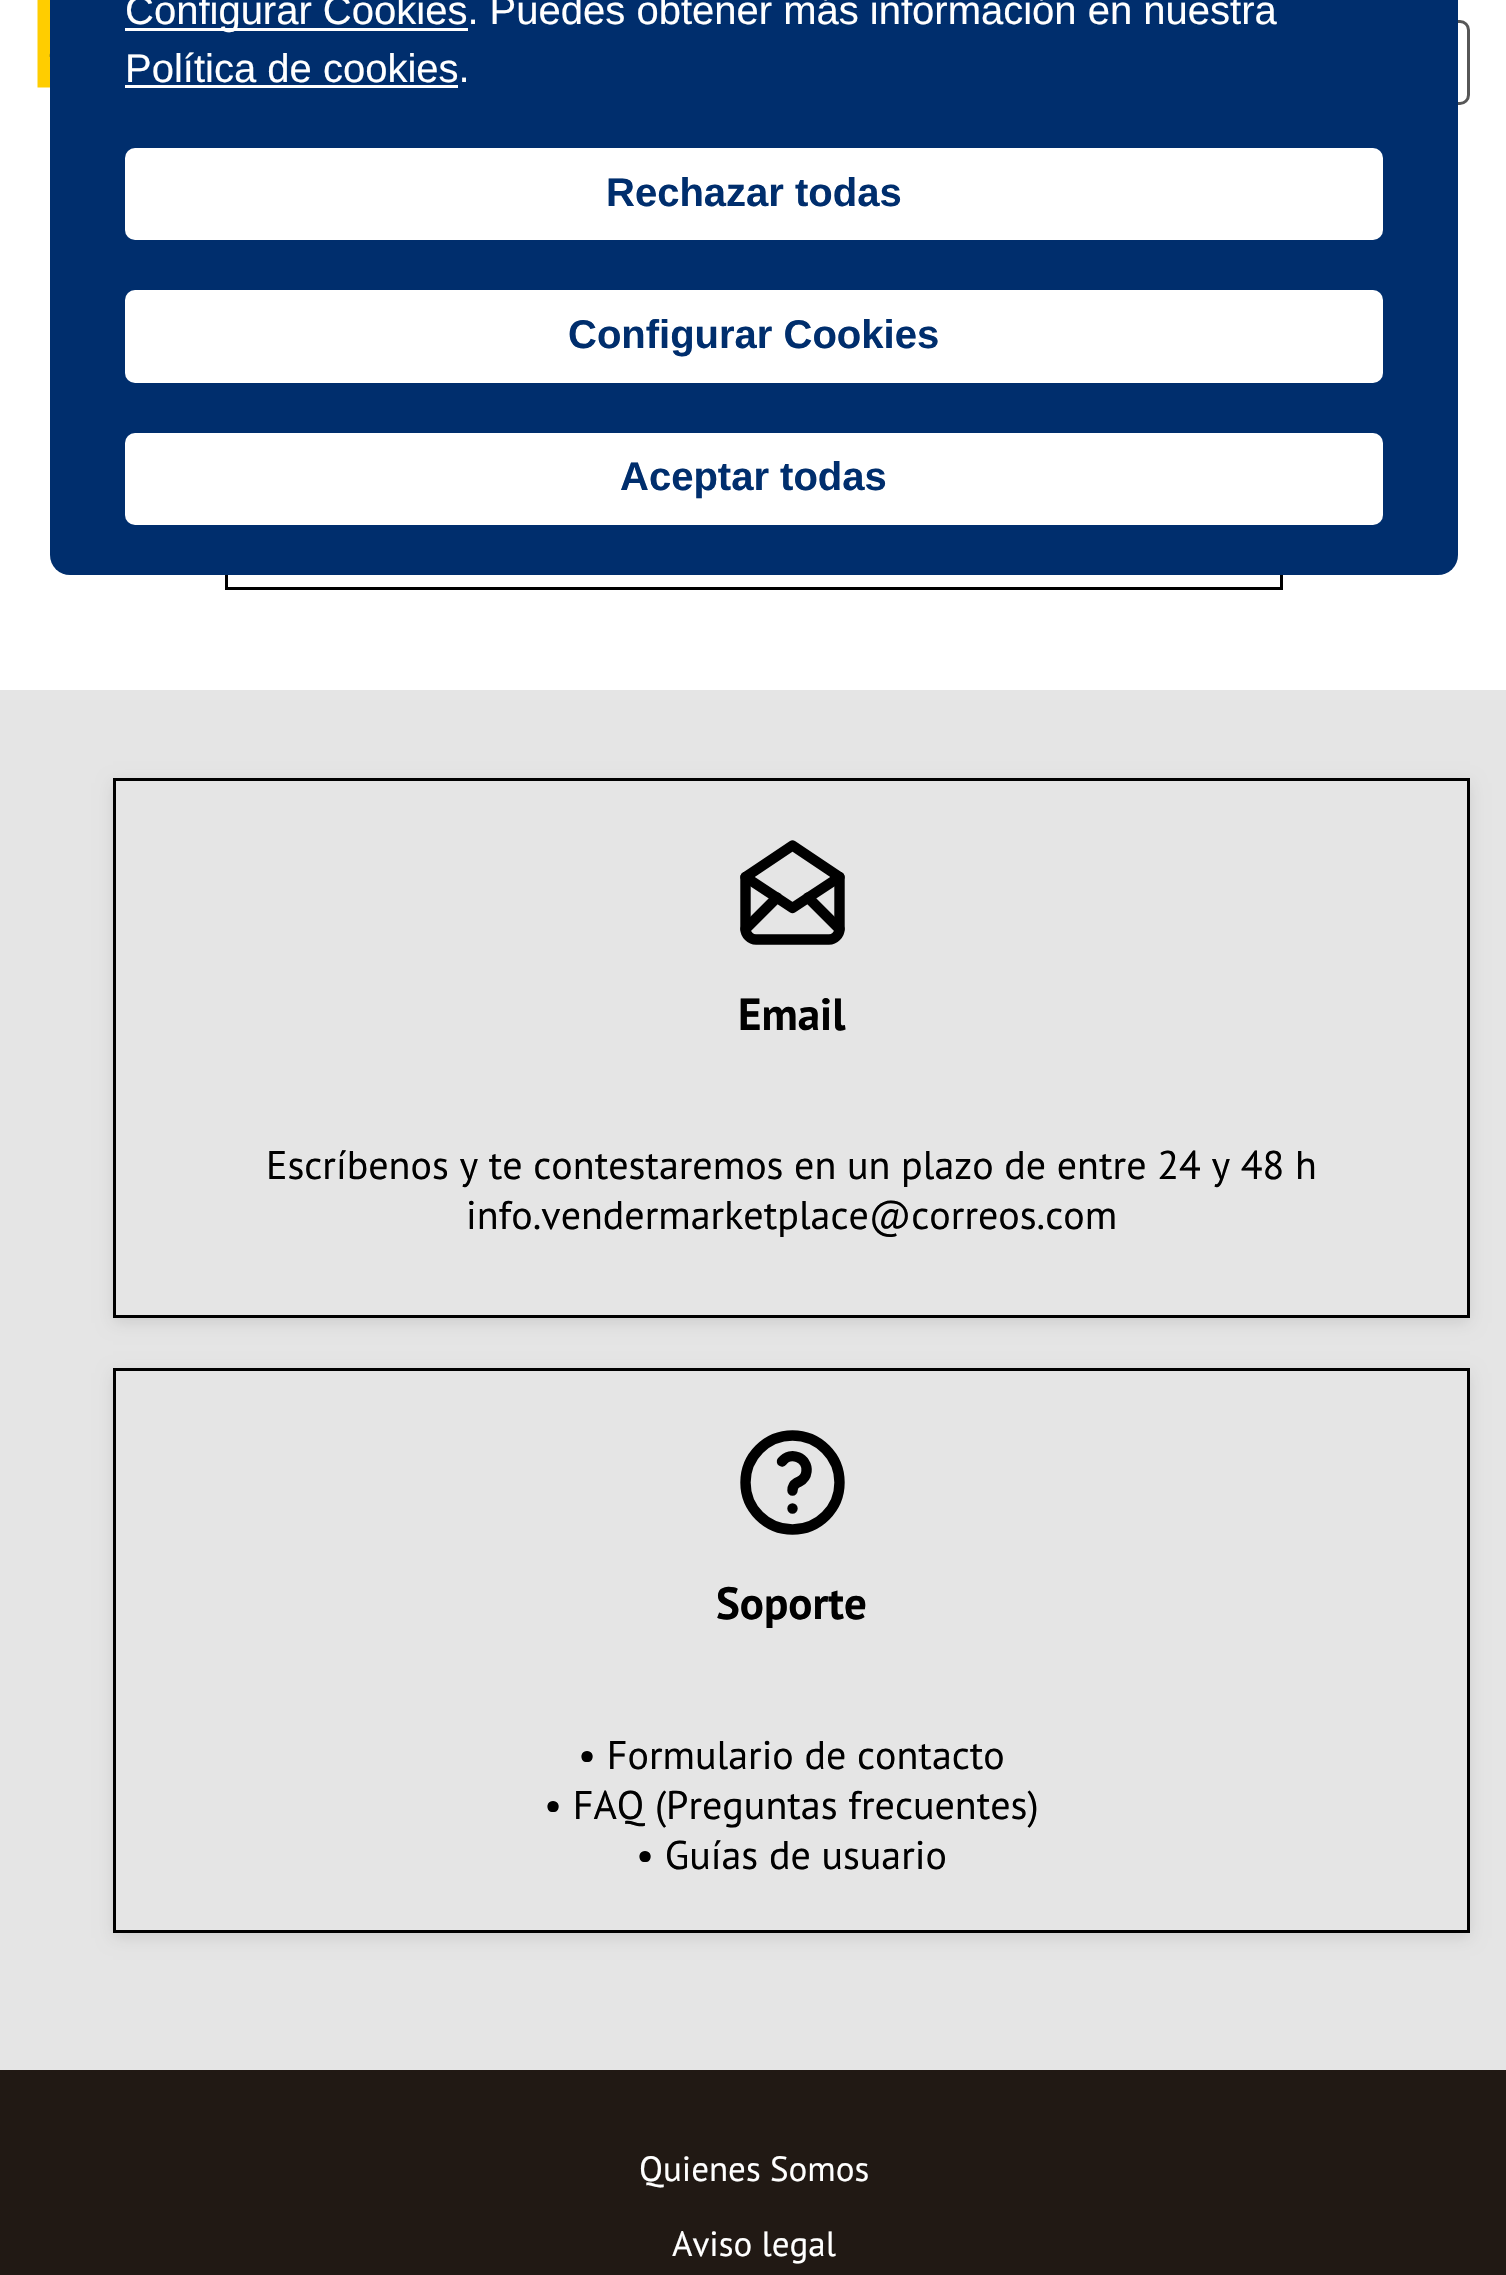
#include "include/core/SkBlurTypes.h"
#include "include/core/SkCanvas.h"
#include "include/core/SkData.h"
#include "include/core/SkFont.h"
#include "include/core/SkFontMgr.h"
#include "include/core/SkImage.h"
#include "include/core/SkMaskFilter.h"
#include "include/core/SkPaint.h"
#include "include/core/SkPathBuilder.h"
#include "include/core/SkTextBlob.h"
#include "include/effects/SkDashPathEffect.h"
#include "include/effects/SkGradientShader.h"
#include "include/utils/SkParsePath.h"

extern sk_sp<SkFontMgr> fontMgr;

void draw(SkCanvas* canvas) {
  SkPaint p;
  p.setAntiAlias(true);
  canvas->clear(SK_ColorWHITE);
  p.setStyle(SkPaint::kStroke_Style);
  p.setStrokeWidth(3);
  p.setColor(SK_ColorBLACK);
  canvas->drawRect(SkRect::MakeLTRB(226.5f, -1.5f, 1281.5f, 588.5f), p);
  p.setStyle(SkPaint::kFill_Style);
  p.setColor(SK_ColorWHITE);
  canvas->drawRect(SkRect::MakeLTRB(225, 0, 1283, 145), p);
  p.setStyle(SkPaint::kStroke_Style);
  p.setColor(SkColorSetRGB(87, 87, 87));
  canvas->drawRoundRect(SkRect::MakeLTRB(1361.5f, 21.5f, 1468.5f, 103.5f), 8.5f, 8.5f, p);
  p.setStyle(SkPaint::kFill_Style);
  p.setColor(SkColorSetRGB(0, 46, 109));
  canvas->drawRoundRect(SkRect::MakeLTRB(50, -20, 1458, 575), 20, 20, p);
  p.setColor(SK_ColorWHITE);
  canvas->drawRect(SkRect::MakeLTRB(125, 28, 468, 31), p);
  canvas->drawRect(SkRect::MakeLTRB(125, 85, 458, 88), p);
  canvas->drawRoundRect(SkRect::MakeLTRB(125, 148, 1383, 240), 10, 10, p);
  canvas->drawRoundRect(SkRect::MakeLTRB(125, 290, 1383, 383), 10, 10, p);
  canvas->drawRoundRect(SkRect::MakeLTRB(125, 433, 1383, 525), 10, 10, p);
  canvas->drawImageRect(SkImages::DeferredFromEncodedData(SkData::MakeFromFileName("images/1.png")), SkRect::MakeLTRB(37, 0, 50, 88), SkSamplingOptions());
  p.setColor(SkColorSetRGB(33, 25, 20));
  canvas->drawRect(SkRect::MakeLTRB(0, 2070, 1506, 2275), p);
  p.setColor(SkColorSetRGB(229, 229, 229));
  canvas->drawRect(SkRect::MakeLTRB(0, 690, 1506, 2070), p);
  canvas->save();
  canvas->clipPath(SkPathBuilder(SkPathFillType::kEvenOdd).moveTo(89, 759).lineTo(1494, 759).lineTo(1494, 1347).lineTo(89, 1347).close().moveTo(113, 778).lineTo(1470, 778).lineTo(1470, 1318).lineTo(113, 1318).close().detach(), true);
  p.setColor(SkColorSetARGB(26, 0, 0, 0));
  p.setMaskFilter(SkMaskFilter::MakeBlur(kNormal_SkBlurStyle, 7.5f));
  canvas->drawRect(SkRect::MakeLTRB(113, 783, 1470, 1323), p);
  p.setMaskFilter(nullptr);
  canvas->restore();
  p.setStyle(SkPaint::kStroke_Style);
  p.setColor(SK_ColorBLACK);
  canvas->drawRect(SkRect::MakeLTRB(114.5f, 779.5f, 1468.5f, 1316.5f), p);
  p.setStrokeWidth(10.4f);
  p.setStrokeCap(SkPaint::kRound_Cap);
  p.setStrokeJoin(SkPaint::kRound_Join);
  canvas->drawPath(SkPathBuilder().moveTo(745.5f, 877).lineTo(792.5f, 908).lineTo(839.5f, 877).lineTo(792.5f, 845.5f).lineTo(745.5f, 877).detach(), p);
  canvas->drawPath(SkPathBuilder().moveTo(839.5f, 877).lineTo(839.5f, 929).cubicTo(839.5f, 934.5f, 834.5f, 939.5f, 829, 939.5f).lineTo(756, 939.5f).cubicTo(750.5f, 939.5f, 745.5f, 934.5f, 745.5f, 929).lineTo(745.5f, 877).detach(), p);
  canvas->drawPath(SkPathBuilder().moveTo(745.5f, 929).lineTo(777, 897.5f).detach(), p);
  canvas->drawPath(SkPathBuilder().moveTo(808, 897.5f).lineTo(839.5f, 929).detach(), p);
  canvas->save();
  canvas->clipPath(SkPathBuilder(SkPathFillType::kEvenOdd).moveTo(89, 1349).lineTo(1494, 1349).lineTo(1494, 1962).lineTo(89, 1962).close().moveTo(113, 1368).lineTo(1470, 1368).lineTo(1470, 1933).lineTo(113, 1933).close().detach(), true);
  p.setStyle(SkPaint::kFill_Style);
  p.setColor(SkColorSetARGB(26, 0, 0, 0));
  p.setMaskFilter(SkMaskFilter::MakeBlur(kNormal_SkBlurStyle, 7.5f));
  canvas->drawRect(SkRect::MakeLTRB(113, 1373, 1470, 1938), p);
  p.setMaskFilter(nullptr);
  canvas->restore();
  p.setStyle(SkPaint::kStroke_Style);
  p.setStrokeWidth(3);
  p.setStrokeCap(SkPaint::kButt_Cap);
  p.setStrokeJoin(SkPaint::kMiter_Join);
  p.setColor(SK_ColorBLACK);
  canvas->drawRect(SkRect::MakeLTRB(114.5f, 1369.5f, 1468.5f, 1931.5f), p);
  p.setStrokeWidth(10.4f);
  p.setStrokeCap(SkPaint::kRound_Cap);
  p.setStrokeJoin(SkPaint::kRound_Join);
  canvas->drawPath(SkPathBuilder().moveTo(745.5f, 1482.5f).cubicTo(745.5f, 1508.5f, 766.5f, 1529.5f, 792.5f, 1529.5f).cubicTo(818.5f, 1529.5f, 839.5f, 1508.5f, 839.5f, 1482.5f).cubicTo(839.5f, 1456.5f, 818.5f, 1435.5f, 792.5f, 1435.5f).cubicTo(766.5f, 1435.5f, 745.5f, 1456.5f, 745.5f, 1482.5f).detach(), p);
  canvas->drawPath(SkPathBuilder().moveTo(792.5f, 1508.5f).lineTo(792.5f, 1508.5f).moveTo(792.5f, 1490.5f).cubicTo(792.5f, 1487.5f, 794, 1484.5f, 796.5f, 1483).lineTo(799.5f, 1481.5f).cubicTo(803.5f, 1479.5f, 806, 1476, 806.5f, 1471.5f).cubicTo(808, 1458, 790.5f, 1450.5f, 782, 1461.5f).detach(), p);
  SkFont font1(fontMgr->matchFamilyStyle("Liberation Sans", SkFontStyle::Normal()), 40);
  font1.setSubpixel(true);
  p.setStyle(SkPaint::kFill_Style);
  p.setColor(SK_ColorWHITE);
  canvas->drawString("Configurar Cookies. Puedes obtener más información en nuestra", 125, 24, font1, p);
  canvas->drawString("Política de cookies.", 125, 82, font1, p);
  SkFont font2(fontMgr->matchFamilyStyle("Liberation Sans", SkFontStyle::Bold()), 40);
  font2.setSubpixel(true);
  p.setColor(SkColorSetRGB(0, 46, 109));
  canvas->drawString("Rechazar todas", 606, 206, font2, p);
  canvas->drawString("Configurar Cookies", 568, 348, font2, p);
  canvas->drawString("Aceptar todas", 620, 490, font2, p);
  SkFont font3(fontMgr->matchFamilyStyle("PT Sans", SkFontStyle::Bold()), 45);
  font3.setSubpixel(true);
  p.setColor(SK_ColorBLACK);
  canvas->drawString("Email", 738, 1030, font3, p);
  SkFont font4(fontMgr->matchFamilyStyle("PT Sans", SkFontStyle::Normal()), 40);
  font4.setSubpixel(true);
  canvas->drawString("Escríbenos y te contestaremos en un plazo de entre 24 y 48 h", 266, 1179, font4, p);
  canvas->drawString("info.vendermarketplace@correos.com", 466, 1229, font4, p);
  canvas->drawString("Soporte", 716, 1619, font3, p);
  canvas->drawString("• Formulario de contacto", 578, 1769, font4, p);
  canvas->drawString("• FAQ (Preguntas frecuentes)", 544, 1819, font4, p);
  canvas->drawString("• Guías de usuario", 636, 1869, font4, p);
  SkFont font5(fontMgr->matchFamilyStyle("PT Sans", SkFontStyle::Normal()), 35);
  font5.setSubpixel(true);
  p.setColor(SK_ColorWHITE);
  canvas->drawString("Quienes Somos", 639, 2181, font5, p);
  canvas->drawString("Aviso legal", 672, 2256, font5, p);
}
